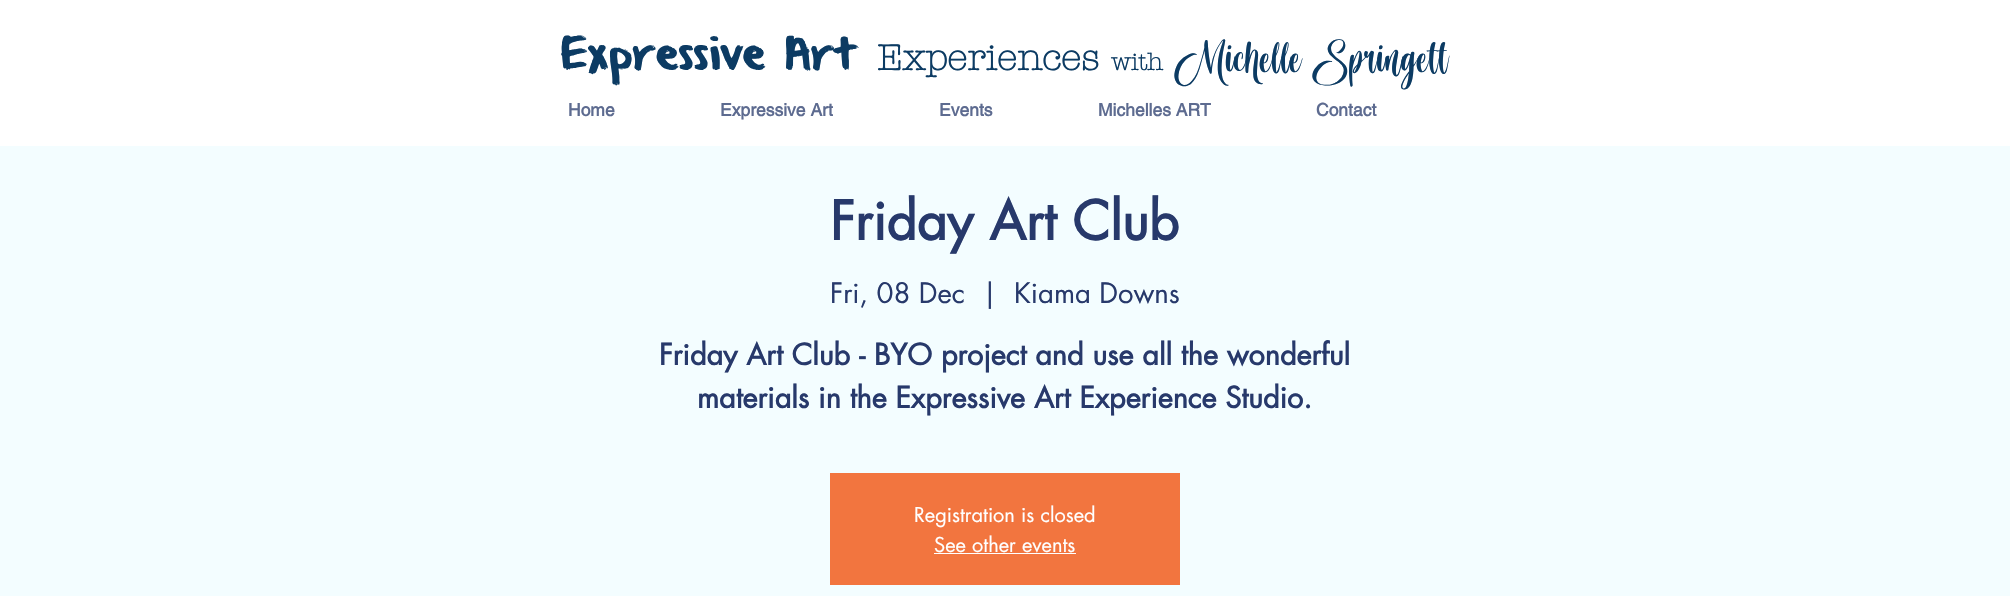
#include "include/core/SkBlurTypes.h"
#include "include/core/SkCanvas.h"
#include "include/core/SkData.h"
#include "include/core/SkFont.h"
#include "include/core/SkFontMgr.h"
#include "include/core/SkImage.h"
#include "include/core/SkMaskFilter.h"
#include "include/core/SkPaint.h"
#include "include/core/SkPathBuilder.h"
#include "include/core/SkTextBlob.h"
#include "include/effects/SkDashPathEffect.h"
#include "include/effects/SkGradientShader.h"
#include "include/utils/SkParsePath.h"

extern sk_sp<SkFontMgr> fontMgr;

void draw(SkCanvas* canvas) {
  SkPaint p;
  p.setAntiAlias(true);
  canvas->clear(SkColorSetRGB(243, 253, 255));
  p.setColor(SK_ColorWHITE);
  canvas->drawRect(SkRect::MakeLTRB(0, 0, 2010, 146), p);
  p.setColor(SkColorSetRGB(242, 117, 63));
  canvas->drawRect(SkRect::MakeLTRB(830, 473, 1180, 585), p);
  p.setColor(SK_ColorWHITE);
  canvas->drawRect(SkRect::MakeLTRB(934, 553, 1076, 554), p);
  SkFont font1(fontMgr->matchFamilyStyle("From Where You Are", SkFontStyle::Normal()), 36.25f);
  font1.setSubpixel(true);
  p.setColor(SkColorSetRGB(12, 59, 99));
  canvas->drawString("Expressive Art", 560, 70, font1, p);
  SkFont font2(fontMgr->matchFamilyStyle("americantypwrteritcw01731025", SkFontStyle::Bold()), 36.25f);
  font2.setSubpixel(true);
  canvas->drawString("Experiences", 877, 70, font2, p);
  SkFont font3(fontMgr->matchFamilyStyle("americantypwrteritcw01731025", SkFontStyle::Bold()), 24);
  font3.setSubpixel(true);
  canvas->drawString("with", 1111, 70, font3, p);
  SkFont font4(fontMgr->matchFamilyStyle("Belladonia", SkFontStyle::Normal()), 46.25f);
  font4.setSubpixel(true);
  canvas->drawString("Michelle Springett", 1173, 70, font4, p);
  SkFont font5(fontMgr->matchFamilyStyle("helvetica", SkFontStyle::Bold()), 17.5f);
  font5.setSubpixel(true);
  p.setColor(SkColorSetRGB(93, 107, 144));
  canvas->drawString("Home", 568, 116, font5, p);
  canvas->drawString("Expressive Art", 720, 116, font5, p);
  canvas->drawString("Events", 939, 116, font5, p);
  canvas->drawString("Michelles ART", 1098, 116, font5, p);
  canvas->drawString("Contact", 1316, 116, font5, p);
  SkFont font6(fontMgr->matchFamilyStyle("futura", SkFontStyle::Bold()), 52.5f);
  font6.setSubpixel(true);
  p.setColor(SkColorSetRGB(39, 57, 107));
  canvas->drawString("Friday Art Club", 830, 240, font6, p);
  SkFont font7(fontMgr->matchFamilyStyle("futura", SkFontStyle::Normal()), 27.5f);
  font7.setSubpixel(true);
  canvas->drawString("Fri, 08 Dec", 830, 303, font7, p);
  canvas->drawString("|", 982, 303, font7, p);
  canvas->drawString("Kiama Downs", 1014, 303, font7, p);
  SkFont font8(fontMgr->matchFamilyStyle("futura", SkFontStyle::Bold()), 28.75f);
  font8.setSubpixel(true);
  canvas->drawString("Friday Art Club - BYO project and use all the wonderful", 659, 365, font8, p);
  canvas->drawString("materials in the Expressive Art Experience Studio.", 697, 408, font8, p);
  SkFont font9(fontMgr->matchFamilyStyle("futura", SkFontStyle::Normal()), 20);
  font9.setSubpixel(true);
  p.setColor(SK_ColorWHITE);
  canvas->drawString("Registration is closed", 914, 522, font9, p);
  canvas->drawString("See other events", 934, 552, font9, p);
}
